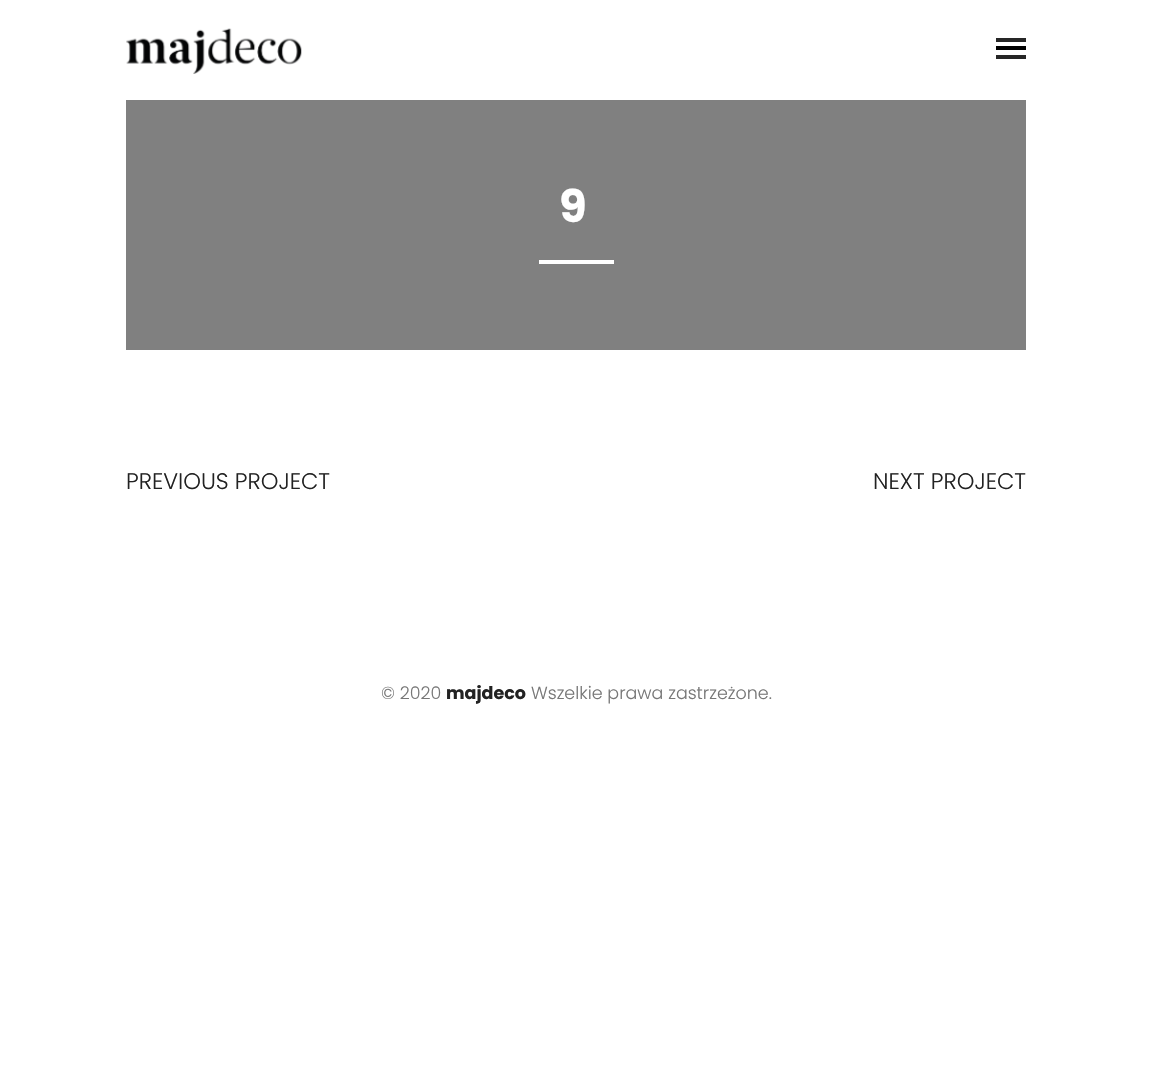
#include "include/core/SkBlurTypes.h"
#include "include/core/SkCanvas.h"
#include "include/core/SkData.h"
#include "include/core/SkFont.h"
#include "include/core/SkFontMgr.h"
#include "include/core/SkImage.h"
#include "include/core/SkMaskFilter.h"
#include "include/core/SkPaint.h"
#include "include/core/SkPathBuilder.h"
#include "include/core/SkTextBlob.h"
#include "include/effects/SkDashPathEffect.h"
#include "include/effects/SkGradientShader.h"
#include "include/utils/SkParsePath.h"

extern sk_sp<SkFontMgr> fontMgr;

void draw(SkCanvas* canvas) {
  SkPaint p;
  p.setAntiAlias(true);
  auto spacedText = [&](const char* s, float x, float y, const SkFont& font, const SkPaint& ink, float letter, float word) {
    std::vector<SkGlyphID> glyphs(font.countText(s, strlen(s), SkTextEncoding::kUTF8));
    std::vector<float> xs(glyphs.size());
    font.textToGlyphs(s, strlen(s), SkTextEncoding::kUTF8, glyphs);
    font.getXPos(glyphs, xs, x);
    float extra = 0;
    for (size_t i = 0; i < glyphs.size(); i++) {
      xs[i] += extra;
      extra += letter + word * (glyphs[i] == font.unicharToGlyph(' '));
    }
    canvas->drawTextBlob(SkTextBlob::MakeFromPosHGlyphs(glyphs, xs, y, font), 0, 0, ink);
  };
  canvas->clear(SK_ColorWHITE);
  canvas->drawImageRect(SkImages::DeferredFromEncodedData(SkData::MakeFromFileName("images/1.png")), SkRect::MakeLTRB(126, 28, 302, 74), SkSamplingOptions());
  p.setColor(SK_ColorBLACK);
  canvas->drawRect(SkRect::MakeLTRB(996, 46, 1026, 50), p);
  p.setColor(SkColorSetRGB(38, 38, 38));
  canvas->drawRect(SkRect::MakeLTRB(996, 38, 1026, 42), p);
  canvas->drawRect(SkRect::MakeLTRB(996, 55, 1026, 59), p);
  p.setColor(SkColorSetRGB(128, 128, 128));
  canvas->drawRect(SkRect::MakeLTRB(126, 100, 1026, 350), p);
  p.setColor(SK_ColorWHITE);
  canvas->drawRect(SkRect::MakeLTRB(539, 260, 614, 264), p);
  SkFont font1(fontMgr->matchFamilyStyle("Poppins", SkFontStyle::Bold()), 45);
  font1.setSubpixel(true);
  spacedText("9", 559, 222, font1, p, 6, 0);
  SkFont font2(fontMgr->matchFamilyStyle("Poppins", SkFontStyle(300, SkFontStyle::kNormal_Width, SkFontStyle::kUpright_Slant)), 22.5f);
  font2.setSubpixel(true);
  p.setColor(SkColorSetRGB(34, 34, 34));
  canvas->drawString("PREVIOUS PROJECT", 126, 489, font2, p);
  canvas->drawString("NEXT PROJECT", 873, 489, font2, p);
  SkFont font3(fontMgr->matchFamilyStyle("Poppins", SkFontStyle(300, SkFontStyle::kNormal_Width, SkFontStyle::kUpright_Slant)), 17.5f);
  font3.setSubpixel(true);
  p.setColor(SkColorSetRGB(119, 119, 119));
  canvas->drawString("© 2020", 381, 699, font3, p);
  SkFont font4(fontMgr->matchFamilyStyle("Poppins", SkFontStyle::Bold()), 17.5f);
  font4.setSubpixel(true);
  p.setColor(SkColorSetRGB(34, 34, 34));
  canvas->drawString("majdeco", 446, 699, font4, p);
  p.setColor(SkColorSetRGB(119, 119, 119));
  canvas->drawString("Wszelkie prawa zastrzeżone.", 531, 699, font3, p);
}
